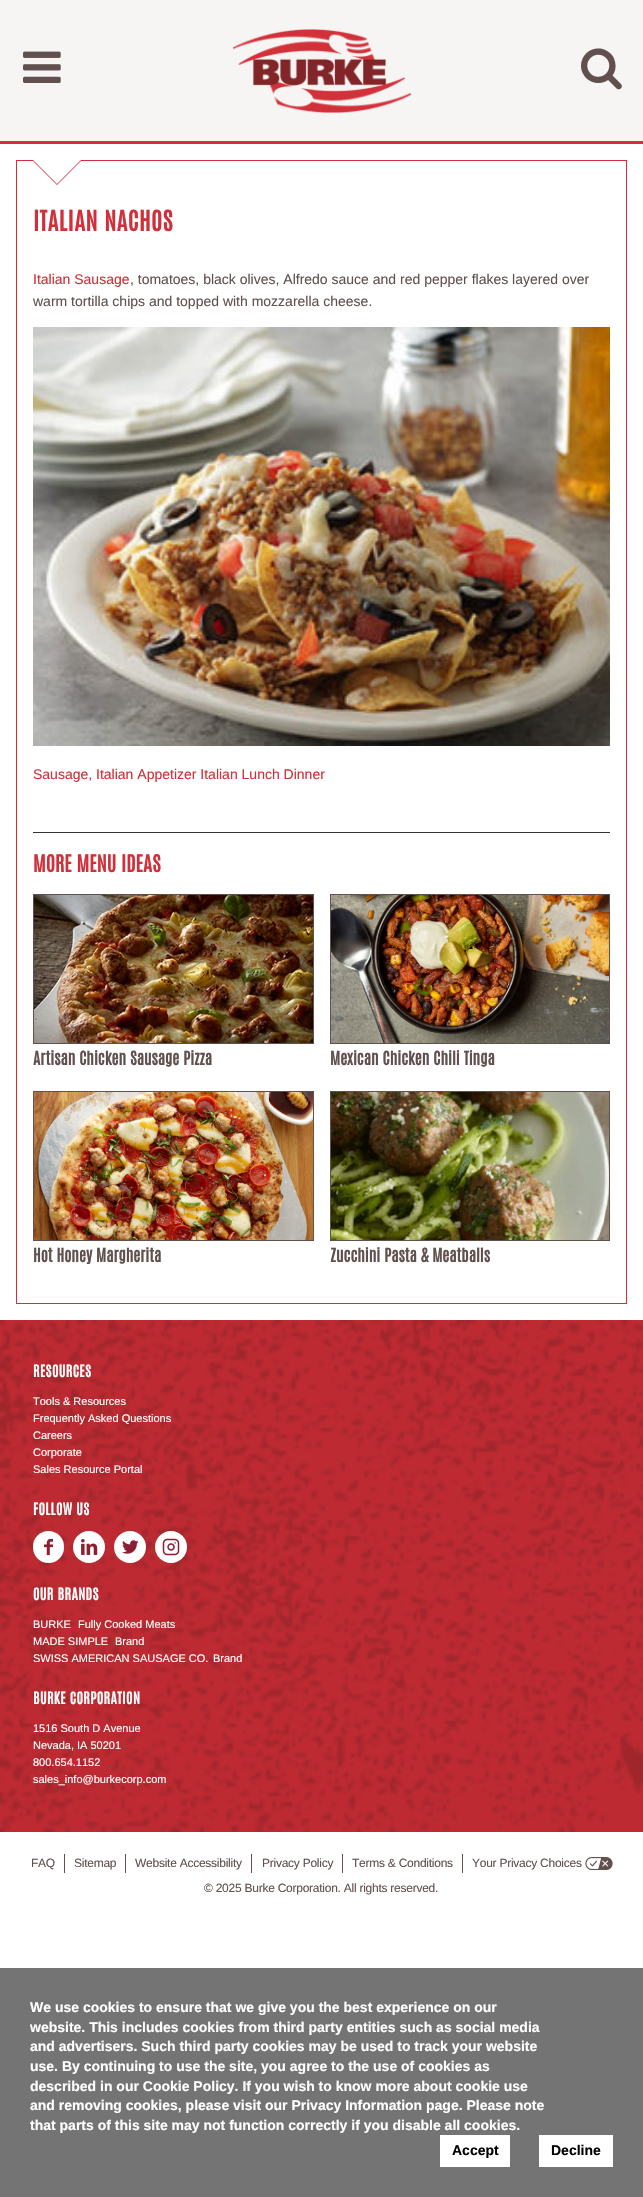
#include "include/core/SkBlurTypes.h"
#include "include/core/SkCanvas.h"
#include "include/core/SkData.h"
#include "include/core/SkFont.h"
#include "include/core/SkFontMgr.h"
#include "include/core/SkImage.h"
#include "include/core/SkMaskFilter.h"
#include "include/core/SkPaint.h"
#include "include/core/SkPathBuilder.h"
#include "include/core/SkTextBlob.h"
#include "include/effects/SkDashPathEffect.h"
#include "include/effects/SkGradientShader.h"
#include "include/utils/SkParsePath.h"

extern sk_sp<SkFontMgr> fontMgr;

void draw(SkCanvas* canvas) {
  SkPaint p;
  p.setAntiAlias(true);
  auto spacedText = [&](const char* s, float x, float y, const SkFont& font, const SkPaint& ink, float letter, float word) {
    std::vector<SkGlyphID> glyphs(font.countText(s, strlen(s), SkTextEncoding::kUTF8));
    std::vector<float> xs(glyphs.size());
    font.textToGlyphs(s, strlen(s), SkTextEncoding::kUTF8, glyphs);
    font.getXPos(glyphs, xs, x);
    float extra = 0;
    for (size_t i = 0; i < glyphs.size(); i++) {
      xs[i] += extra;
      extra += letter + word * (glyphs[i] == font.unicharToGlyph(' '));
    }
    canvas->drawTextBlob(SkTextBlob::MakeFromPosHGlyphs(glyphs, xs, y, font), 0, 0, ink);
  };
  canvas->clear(SK_ColorWHITE);
  p.setColor(SkColorSetRGB(246, 245, 243));
  canvas->drawRect(SkRect::MakeLTRB(0, 0, 643, 141), p);
  p.setColor(SkColorSetRGB(209, 47, 57));
  canvas->drawRect(SkRect::MakeLTRB(0, 141, 643, 144), p);
  canvas->drawImageRect(SkImages::DeferredFromEncodedData(SkData::MakeFromFileName("images/1.png")), SkRect::MakeLTRB(23, 51, 61, 83), SkSamplingOptions());
  canvas->drawImageRect(SkImages::DeferredFromEncodedData(SkData::MakeFromFileName("images/2.png")), SkRect::MakeLTRB(233, 29, 412, 114), SkSamplingOptions());
  canvas->drawImageRect(SkImages::DeferredFromEncodedData(SkData::MakeFromFileName("images/3.png")), SkRect::MakeLTRB(581, 48, 622, 90), SkSamplingOptions());
  p.setStyle(SkPaint::kStroke_Style);
  p.setStrokeWidth(1);
  canvas->drawRect(SkRect::MakeLTRB(16.5f, 160.5f, 626.5f, 1303.5f), p);
  p.setStyle(SkPaint::kFill_Style);
  canvas->drawPath(SkPathBuilder().moveTo(32, 160).lineTo(82, 160).lineTo(57, 185).close().detach(), p);
  p.setColor(SK_ColorWHITE);
  canvas->drawPath(SkPathBuilder().moveTo(33, 160).lineTo(81, 160).lineTo(57, 184).close().detach(), p);
  p.setColor(SkColorSetRGB(51, 51, 51));
  canvas->drawRect(SkRect::MakeLTRB(33, 832, 610, 833), p);
  canvas->drawImageRect(SkImages::DeferredFromEncodedData(SkData::MakeFromFileName("images/4.png")), SkRect::MakeLTRB(33, 327, 610, 746), SkSamplingOptions());
  p.setStyle(SkPaint::kStroke_Style);
  p.setColor(SkColorSetRGB(97, 80, 77));
  canvas->drawRect(SkRect::MakeLTRB(33.5f, 894.5f, 313.5f, 1043.5f), p);
  canvas->drawImageRect(SkImages::DeferredFromEncodedData(SkData::MakeFromFileName("images/5.png")), SkRect::MakeLTRB(34, 895, 313, 1043), SkSamplingOptions());
  canvas->drawRect(SkRect::MakeLTRB(330.5f, 894.5f, 609.5f, 1043.5f), p);
  canvas->drawImageRect(SkImages::DeferredFromEncodedData(SkData::MakeFromFileName("images/6.png")), SkRect::MakeLTRB(331, 895, 609, 1043), SkSamplingOptions());
  canvas->drawRect(SkRect::MakeLTRB(33.5f, 1091.5f, 313.5f, 1240.5f), p);
  canvas->drawImageRect(SkImages::DeferredFromEncodedData(SkData::MakeFromFileName("images/7.png")), SkRect::MakeLTRB(34, 1092, 313, 1240), SkSamplingOptions());
  canvas->drawRect(SkRect::MakeLTRB(330.5f, 1091.5f, 609.5f, 1240.5f), p);
  canvas->drawImageRect(SkImages::DeferredFromEncodedData(SkData::MakeFromFileName("images/8.png")), SkRect::MakeLTRB(331, 1092, 609, 1240), SkSamplingOptions());
  canvas->drawImageRect(SkImages::DeferredFromEncodedData(SkData::MakeFromFileName("images/9.png")), SkRect::MakeLTRB(0, 1320, 643, 1832), SkSamplingOptions());
  p.setStyle(SkPaint::kFill_Style);
  p.setColor(SK_ColorWHITE);
  canvas->drawRoundRect(SkRect::MakeLTRB(33, 1531, 64, 1563), 15.5f, 15.5f, p);
  canvas->drawImageRect(SkImages::DeferredFromEncodedData(SkData::MakeFromFileName("images/10.png")), SkRect::MakeLTRB(44, 1538, 53, 1556), SkSamplingOptions());
  canvas->drawCircle(89, 1547, 16, p);
  canvas->drawImageRect(SkImages::DeferredFromEncodedData(SkData::MakeFromFileName("images/11.png")), SkRect::MakeLTRB(81, 1539, 98, 1555), SkSamplingOptions());
  canvas->drawCircle(130, 1547, 16, p);
  canvas->drawImageRect(SkImages::DeferredFromEncodedData(SkData::MakeFromFileName("images/12.png")), SkRect::MakeLTRB(122, 1540, 139, 1554), SkSamplingOptions());
  canvas->drawCircle(171, 1547, 16, p);
  canvas->drawImageRect(SkImages::DeferredFromEncodedData(SkData::MakeFromFileName("images/13.png")), SkRect::MakeLTRB(162, 1538, 180, 1556), SkSamplingOptions());
  p.setColor(SkColorSetRGB(97, 80, 77));
  canvas->drawRect(SkRect::MakeLTRB(64, 1854, 65, 1873), p);
  canvas->drawRect(SkRect::MakeLTRB(125, 1854, 126, 1873), p);
  canvas->drawRect(SkRect::MakeLTRB(251, 1854, 252, 1873), p);
  canvas->drawRect(SkRect::MakeLTRB(342, 1854, 343, 1873), p);
  canvas->drawRect(SkRect::MakeLTRB(462, 1854, 463, 1873), p);
  canvas->drawImageRect(SkImages::DeferredFromEncodedData(SkData::MakeFromFileName("images/14.png")), SkRect::MakeLTRB(585, 1857, 613, 1870), SkSamplingOptions());
  p.setColor(SkColorSetRGB(116, 116, 116));
  canvas->drawRect(SkRect::MakeLTRB(0, 1968, 643, 2197), p);
  p.setColor(SK_ColorWHITE);
  canvas->drawRect(SkRect::MakeLTRB(440, 2135, 510, 2167), p);
  canvas->drawRect(SkRect::MakeLTRB(539, 2135, 613, 2167), p);
  SkFont font1(fontMgr->matchFamilyStyle("Antonio", SkFontStyle::Bold()), 24);
  font1.setSubpixel(true);
  p.setColor(SkColorSetRGB(209, 47, 57));
  spacedText("ITALIAN NACHOS", 33, 231, font1, p, 0.4f, 0);
  SkFont font2(fontMgr->matchFamilyStyle("Liberation Sans", SkFontStyle::Normal()), 14);
  font2.setSubpixel(true);
  canvas->drawString("Italian Sausage", 33, 284, font2, p);
  p.setColor(SkColorSetRGB(97, 80, 77));
  canvas->drawString(", tomatoes, black olives, Alfredo sauce and red pepper flakes layered over", 130, 284, font2, p);
  canvas->drawString("warm tortilla chips and topped with mozzarella cheese.", 33, 306, font2, p);
  p.setColor(SkColorSetRGB(209, 47, 57));
  canvas->drawString("Sausage, Italian Appetizer Italian Lunch Dinner", 33, 779, font2, p);
  SkFont font3(fontMgr->matchFamilyStyle("Antonio", SkFontStyle::Bold()), 20);
  font3.setSubpixel(true);
  canvas->drawString("MORE MENU IDEAS", 33, 872, font3, p);
  SkFont font4(fontMgr->matchFamilyStyle("Antonio", SkFontStyle::Bold()), 16);
  font4.setSubpixel(true);
  p.setColor(SkColorSetRGB(97, 80, 77));
  canvas->drawString("Artisan Chicken Sausage Pizza", 33, 1065, font4, p);
  canvas->drawString("Mexican Chicken Chili Tinga", 330, 1065, font4, p);
  canvas->drawString("Hot Honey Margherita", 33, 1262, font4, p);
  canvas->drawString("Zucchini Pasta & Meatballs", 330, 1262, font4, p);
  SkFont font5(fontMgr->matchFamilyStyle("Antonio", SkFontStyle::Bold()), 14);
  font5.setSubpixel(true);
  p.setColor(SK_ColorWHITE);
  spacedText("RESOURCES", 33, 1377, font5, p, 0.4f, 0);
  SkFont font6(fontMgr->matchFamilyStyle("Liberation Sans", SkFontStyle::Normal()), 11);
  font6.setSubpixel(true);
  canvas->drawString("Tools & Resources", 33, 1405, font6, p);
  canvas->drawString("Frequently Asked Questions", 33, 1422, font6, p);
  canvas->drawString("Careers", 33, 1439, font6, p);
  canvas->drawString("Corporate", 33, 1456, font6, p);
  canvas->drawString("Sales Resource Portal", 33, 1473, font6, p);
  spacedText("FOLLOW US", 33, 1515, font5, p, 0.4f, 0);
  spacedText("OUR BRANDS", 33, 1600, font5, p, 0.4f, 0);
  canvas->drawString("BURKE", 33, 1628, font6, p);
  canvas->drawString("Fully Cooked Meats", 78, 1628, font6, p);
  canvas->drawString("MADE SIMPLE", 33, 1645, font6, p);
  canvas->drawString("Brand", 115, 1645, font6, p);
  canvas->drawString("SWISS AMERICAN SAUSAGE CO.", 33, 1662, font6, p);
  canvas->drawString("Brand", 213, 1662, font6, p);
  spacedText("BURKE CORPORATION", 33, 1704, font5, p, 0.4f, 0);
  canvas->drawString("1516 South D Avenue", 33, 1732, font6, p);
  canvas->drawString("Nevada, IA 50201", 33, 1749, font6, p);
  canvas->drawString("800.654.1152", 33, 1766, font6, p);
  canvas->drawString("sales_info@burkecorp.com", 33, 1783, font6, p);
  SkFont font7(fontMgr->matchFamilyStyle("Liberation Sans", SkFontStyle::Normal()), 12);
  font7.setSubpixel(true);
  p.setColor(SkColorSetRGB(97, 80, 77));
  spacedText("FAQ", 31, 1867, font7, p, -0.25f, 0);
  spacedText("Sitemap", 74, 1867, font7, p, -0.25f, 0);
  spacedText("Website Accessibility", 135, 1867, font7, p, -0.25f, 0);
  spacedText("Privacy Policy", 262, 1867, font7, p, -0.25f, 0);
  spacedText("Terms & Conditions", 352, 1867, font7, p, -0.25f, 0);
  spacedText("Your Privacy Choices", 472, 1867, font7, p, -0.25f, 0);
  spacedText("© 2025 Burke Corporation. All rights reserved.", 204, 1892, font7, p, -0.25f, 0);
  SkFont font8(fontMgr->matchFamilyStyle("Liberation Sans", SkFontStyle::Bold()), 14);
  font8.setSubpixel(true);
  p.setColor(SK_ColorWHITE);
  canvas->drawString("We use cookies to ensure that we give you the best experience on our", 30, 2012, font8, p);
  canvas->drawString("website. This includes cookies from third party entities such as social media", 30, 2032, font8, p);
  canvas->drawString("and advertisers. Such third party cookies may be used to track your website", 30, 2051, font8, p);
  canvas->drawString("use. By continuing to use the site, you agree to the use of cookies as", 30, 2071, font8, p);
  canvas->drawString("described in our Cookie Policy. If you wish to know more about cookie use", 30, 2091, font8, p);
  canvas->drawString("and removing cookies, please visit our Privacy Information page. Please note", 30, 2110, font8, p);
  canvas->drawString("that parts of this site may not function correctly if you disable all cookies.", 30, 2130, font8, p);
  p.setColor(SK_ColorBLACK);
  canvas->drawString("Accept", 452, 2155, font8, p);
  canvas->drawString("Decline", 551, 2155, font8, p);
}
